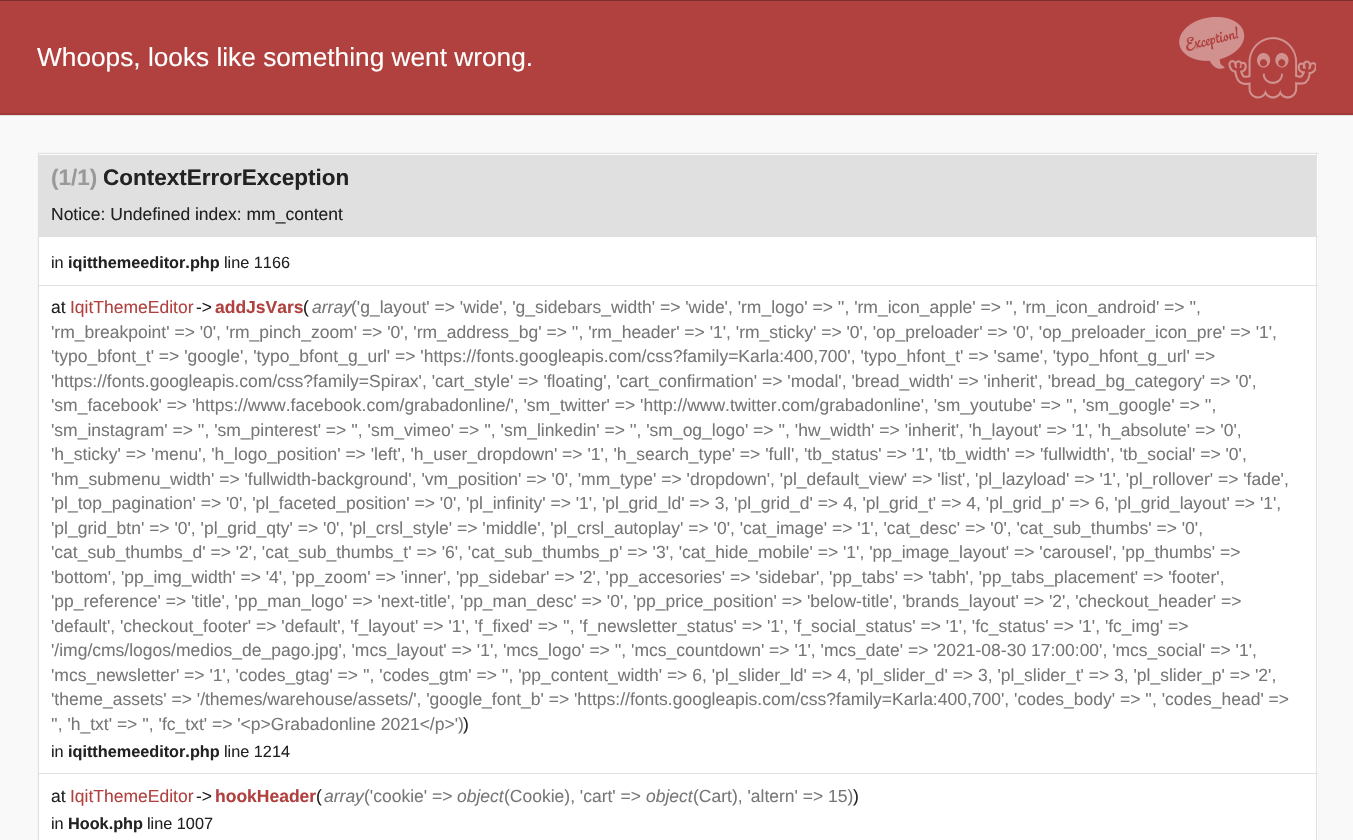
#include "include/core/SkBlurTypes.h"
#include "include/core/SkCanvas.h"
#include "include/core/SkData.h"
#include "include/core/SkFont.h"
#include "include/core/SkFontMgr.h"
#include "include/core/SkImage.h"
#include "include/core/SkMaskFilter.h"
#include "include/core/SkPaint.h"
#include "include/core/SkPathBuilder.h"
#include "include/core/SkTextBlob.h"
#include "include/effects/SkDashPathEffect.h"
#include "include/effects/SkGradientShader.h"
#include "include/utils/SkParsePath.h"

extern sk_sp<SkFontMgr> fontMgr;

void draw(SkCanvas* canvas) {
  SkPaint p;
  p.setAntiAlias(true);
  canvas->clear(SkColorSetRGB(249, 249, 249));
  p.setColor(SkColorSetRGB(224, 224, 224));
  canvas->drawRect(SkRect::MakeLTRB(0, 115, 1353, 116), p);
  p.setColor(SkColorSetRGB(176, 65, 62));
  canvas->drawRect(SkRect::MakeLTRB(0, 1, 1353, 113), p);
  p.setColor(SkColorSetRGB(158, 59, 56));
  canvas->drawRect(SkRect::MakeLTRB(0, 113, 1353, 115), p);
  p.setColor(SkColorSetRGB(123, 46, 43));
  canvas->drawRect(SkRect::MakeLTRB(0, 0, 1353, 1), p);
  canvas->drawImageRect(SkImages::DeferredFromEncodedData(SkData::MakeFromFileName("images/1.png")), SkRect::MakeLTRB(1179, 16, 1316, 99), SkSamplingOptions());
  p.setColor(SkColorSetARGB(51, 128, 128, 128));
  p.setMaskFilter(SkMaskFilter::MakeBlur(kNormal_SkBlurStyle, 0.5f));
  canvas->drawRect(SkRect::MakeLTRB(38, 153, 1318, 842), p);
  p.setMaskFilter(nullptr);
  p.setColor(SK_ColorWHITE);
  canvas->drawRect(SkRect::MakeLTRB(39, 154, 1318, 840), p);
  p.setColor(SkColorSetRGB(224, 224, 224));
  canvas->drawRect(SkRect::MakeLTRB(38, 153, 1318, 154), p);
  canvas->drawRect(SkRect::MakeLTRB(1316, 153, 1317, 840), p);
  canvas->drawRect(SkRect::MakeLTRB(38, 153, 39, 840), p);
  canvas->drawRect(SkRect::MakeLTRB(39, 155, 1316, 236), p);
  canvas->drawRect(SkRect::MakeLTRB(38, 236, 1318, 237), p);
  canvas->drawRect(SkRect::MakeLTRB(38, 285, 1318, 286), p);
  canvas->drawRect(SkRect::MakeLTRB(38, 773, 1318, 774), p);
  SkFont font1(fontMgr->matchFamilyStyle("Liberation Sans", SkFontStyle::Normal()), 26.25f);
  font1.setSubpixel(true);
  p.setColor(SK_ColorWHITE);
  canvas->drawString("Whoops, looks like something went wrong.", 37, 66, font1, p);
  SkFont font2(fontMgr->matchFamilyStyle("Liberation Sans", SkFontStyle::Bold()), 22.5f);
  font2.setSubpixel(true);
  p.setColor(SkColorSetRGB(153, 153, 153));
  canvas->drawString("(1/1)", 51, 185, font2, p);
  p.setColor(SkColorSetRGB(34, 34, 34));
  canvas->drawString("ContextErrorException", 103, 185, font2, p);
  SkFont font3(fontMgr->matchFamilyStyle("Liberation Sans", SkFontStyle::Normal()), 17.5f);
  font3.setSubpixel(true);
  canvas->drawString("Notice: Undefined index: mm_content", 51, 220, font3, p);
  SkFont font4(fontMgr->matchFamilyStyle("Liberation Sans", SkFontStyle::Normal()), 16.25f);
  font4.setSubpixel(true);
  canvas->drawString("in", 51, 268, font4, p);
  SkFont font5(fontMgr->matchFamilyStyle("Liberation Sans", SkFontStyle::Bold()), 16.25f);
  font5.setSubpixel(true);
  canvas->drawString("iqitthemeeditor.php", 68, 268, font5, p);
  canvas->drawString("line 1166", 224, 268, font4, p);
  canvas->drawString("at", 51, 313, font3, p);
  p.setColor(SkColorSetRGB(176, 65, 62));
  canvas->drawString("IqitThemeEditor", 70, 313, font3, p);
  p.setColor(SkColorSetRGB(34, 34, 34));
  canvas->drawString("->", 196, 313, font3, p);
  SkFont font6(fontMgr->matchFamilyStyle("Liberation Sans", SkFontStyle::Bold()), 17.5f);
  font6.setSubpixel(true);
  p.setColor(SkColorSetRGB(176, 65, 62));
  canvas->drawString("addJsVars", 215, 313, font6, p);
  p.setColor(SkColorSetRGB(34, 34, 34));
  canvas->drawString("(", 303, 313, font3, p);
  SkFont font7(fontMgr->matchFamilyStyle("Liberation Sans", SkFontStyle::Italic()), 17.5f);
  font7.setSubpixel(true);
  p.setColor(SkColorSetRGB(119, 119, 119));
  canvas->drawString("array", 312, 313, font7, p);
  canvas->drawString("('g_layout' => 'wide', 'g_sidebars_width' => 'wide', 'rm_logo' => '', 'rm_icon_apple' => '', 'rm_icon_android' => '',", 351, 313, font3, p);
  canvas->drawString("'rm_breakpoint' => '0', 'rm_pinch_zoom' => '0', 'rm_address_bg' => '', 'rm_header' => '1', 'rm_sticky' => '0', 'op_preloader' => '0', 'op_preloader_icon_pre' => '1',", 51, 338, font3, p);
  canvas->drawString("'typo_bfont_t' => 'google', 'typo_bfont_g_url' => 'https://fonts.googleapis.com/css?family=Karla:400,700', 'typo_hfont_t' => 'same', 'typo_hfont_g_url' =>", 51, 362, font3, p);
  canvas->drawString("'https://fonts.googleapis.com/css?family=Spirax', 'cart_style' => 'floating', 'cart_confirmation' => 'modal', 'bread_width' => 'inherit', 'bread_bg_category' => '0',", 51, 387, font3, p);
  canvas->drawString("'sm_facebook' => 'https://www.facebook.com/grabadonline/', 'sm_twitter' => 'http://www.twitter.com/grabadonline', 'sm_youtube' => '', 'sm_google' => '',", 51, 411, font3, p);
  canvas->drawString("'sm_instagram' => '', 'sm_pinterest' => '', 'sm_vimeo' => '', 'sm_linkedin' => '', 'sm_og_logo' => '', 'hw_width' => 'inherit', 'h_layout' => '1', 'h_absolute' => '0',", 51, 436, font3, p);
  canvas->drawString("'h_sticky' => 'menu', 'h_logo_position' => 'left', 'h_user_dropdown' => '1', 'h_search_type' => 'full', 'tb_status' => '1', 'tb_width' => 'fullwidth', 'tb_social' => '0',", 51, 460, font3, p);
  canvas->drawString("'hm_submenu_width' => 'fullwidth-background', 'vm_position' => '0', 'mm_type' => 'dropdown', 'pl_default_view' => 'list', 'pl_lazyload' => '1', 'pl_rollover' => 'fade',", 51, 485, font3, p);
  canvas->drawString("'pl_top_pagination' => '0', 'pl_faceted_position' => '0', 'pl_infinity' => '1', 'pl_grid_ld' => 3, 'pl_grid_d' => 4, 'pl_grid_t' => 4, 'pl_grid_p' => 6, 'pl_grid_layout' => '1',", 51, 509, font3, p);
  canvas->drawString("'pl_grid_btn' => '0', 'pl_grid_qty' => '0', 'pl_crsl_style' => 'middle', 'pl_crsl_autoplay' => '0', 'cat_image' => '1', 'cat_desc' => '0', 'cat_sub_thumbs' => '0',", 51, 534, font3, p);
  canvas->drawString("'cat_sub_thumbs_d' => '2', 'cat_sub_thumbs_t' => '6', 'cat_sub_thumbs_p' => '3', 'cat_hide_mobile' => '1', 'pp_image_layout' => 'carousel', 'pp_thumbs' =>", 51, 558, font3, p);
  canvas->drawString("'bottom', 'pp_img_width' => '4', 'pp_zoom' => 'inner', 'pp_sidebar' => '2', 'pp_accesories' => 'sidebar', 'pp_tabs' => 'tabh', 'pp_tabs_placement' => 'footer',", 51, 583, font3, p);
  canvas->drawString("'pp_reference' => 'title', 'pp_man_logo' => 'next-title', 'pp_man_desc' => '0', 'pp_price_position' => 'below-title', 'brands_layout' => '2', 'checkout_header' =>", 51, 607, font3, p);
  canvas->drawString("'default', 'checkout_footer' => 'default', 'f_layout' => '1', 'f_fixed' => '', 'f_newsletter_status' => '1', 'f_social_status' => '1', 'fc_status' => '1', 'fc_img' =>", 51, 632, font3, p);
  canvas->drawString("'/img/cms/logos/medios_de_pago.jpg', 'mcs_layout' => '1', 'mcs_logo' => '', 'mcs_countdown' => '1', 'mcs_date' => '2021-08-30 17:00:00', 'mcs_social' => '1',", 51, 656, font3, p);
  canvas->drawString("'mcs_newsletter' => '1', 'codes_gtag' => '', 'codes_gtm' => '', 'pp_content_width' => 6, 'pl_slider_ld' => 4, 'pl_slider_d' => 3, 'pl_slider_t' => 3, 'pl_slider_p' => '2',", 51, 681, font3, p);
  canvas->drawString("'theme_assets' => '/themes/warehouse/assets/', 'google_font_b' => 'https://fonts.googleapis.com/css?family=Karla:400,700', 'codes_body' => '', 'codes_head' =>", 51, 705, font3, p);
  canvas->drawString("'', 'h_txt' => '', 'fc_txt' => '<p>Grabadonline 2021</p>')", 51, 730, font3, p);
  p.setColor(SkColorSetRGB(34, 34, 34));
  canvas->drawString(")", 463, 730, font3, p);
  canvas->drawString("in", 51, 757, font4, p);
  canvas->drawString("iqitthemeeditor.php", 68, 757, font5, p);
  canvas->drawString("line 1214", 224, 757, font4, p);
  canvas->drawString("at", 51, 802, font3, p);
  p.setColor(SkColorSetRGB(176, 65, 62));
  canvas->drawString("IqitThemeEditor", 70, 802, font3, p);
  p.setColor(SkColorSetRGB(34, 34, 34));
  canvas->drawString("->", 196, 802, font3, p);
  p.setColor(SkColorSetRGB(176, 65, 62));
  canvas->drawString("hookHeader", 215, 802, font6, p);
  p.setColor(SkColorSetRGB(34, 34, 34));
  canvas->drawString("(", 316, 802, font3, p);
  p.setColor(SkColorSetRGB(119, 119, 119));
  canvas->drawString("array", 324, 802, font7, p);
  canvas->drawString("('cookie' =>", 364, 802, font3, p);
  canvas->drawString("object", 457, 802, font7, p);
  canvas->drawString("(Cookie), 'cart' =>", 504, 802, font3, p);
  canvas->drawString("object", 646, 802, font7, p);
  canvas->drawString("(Cart), 'altern' => 15)", 693, 802, font3, p);
  p.setColor(SkColorSetRGB(34, 34, 34));
  canvas->drawString(")", 853, 802, font3, p);
  canvas->drawString("in", 51, 829, font4, p);
  canvas->drawString("Hook.php", 68, 829, font5, p);
  canvas->drawString("line 1007", 147, 829, font4, p);
}
